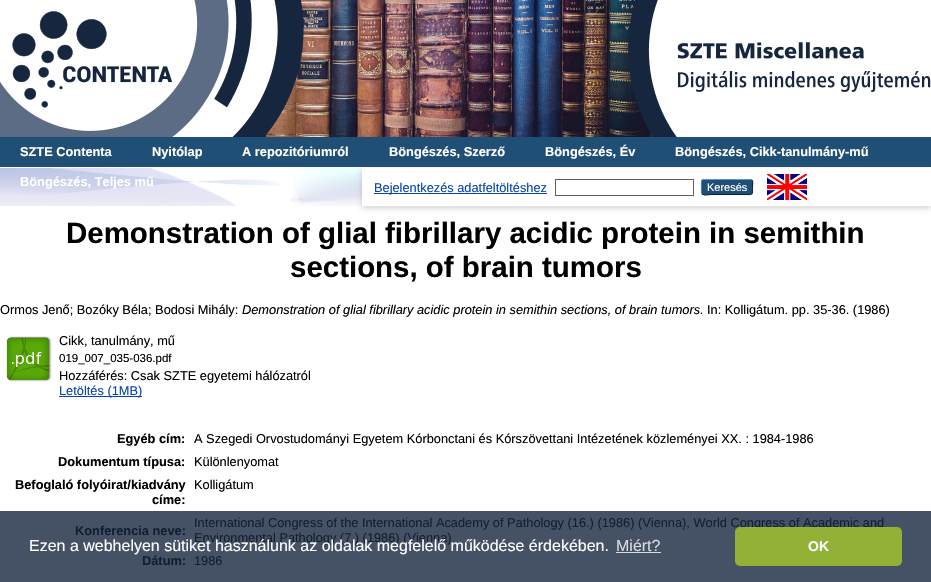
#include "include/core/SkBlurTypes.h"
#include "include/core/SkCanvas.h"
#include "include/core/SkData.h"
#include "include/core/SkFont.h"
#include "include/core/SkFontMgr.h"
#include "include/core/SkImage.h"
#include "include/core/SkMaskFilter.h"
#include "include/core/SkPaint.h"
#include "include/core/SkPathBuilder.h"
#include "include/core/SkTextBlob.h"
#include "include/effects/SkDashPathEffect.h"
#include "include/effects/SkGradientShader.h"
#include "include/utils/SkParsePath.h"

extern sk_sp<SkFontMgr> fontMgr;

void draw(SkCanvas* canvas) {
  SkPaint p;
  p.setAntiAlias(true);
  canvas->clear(SK_ColorWHITE);
  p.setColor(SkColorSetRGB(69, 81, 101));
  canvas->drawRect(SkRect::MakeLTRB(0, 511, 931, 582), p);
  canvas->drawImageRect(SkImages::DeferredFromEncodedData(SkData::MakeFromFileName("images/1.png")), SkRect::MakeLTRB(0, 168, 362, 206), SkSamplingOptions());
  canvas->drawImageRect(SkImages::DeferredFromEncodedData(SkData::MakeFromFileName("images/2.png")), SkRect::MakeLTRB(0, 0, 931, 137), SkSamplingOptions());
  p.setColor(SkColorSetRGB(32, 79, 118));
  canvas->drawRect(SkRect::MakeLTRB(0, 137, 931, 167), p);
  p.setColor(SkColorSetARGB(77, 100, 100, 100));
  p.setMaskFilter(SkMaskFilter::MakeBlur(kNormal_SkBlurStyle, 3));
  canvas->drawRect(SkRect::MakeLTRB(362, 170, 931, 208), p);
  p.setMaskFilter(nullptr);
  p.setColor(SK_ColorWHITE);
  canvas->drawRect(SkRect::MakeLTRB(362, 168, 931, 206), p);
  p.setColor(SkColorSetRGB(6, 69, 173));
  canvas->drawRect(SkRect::MakeLTRB(374, 193, 547, 194), p);
  p.setStyle(SkPaint::kStroke_Style);
  p.setStrokeWidth(1);
  p.setColor(SkColorSetRGB(96, 96, 96));
  canvas->drawRect(SkRect::MakeLTRB(555.5f, 179.5f, 693.5f, 195.5f), p);
  p.setStyle(SkPaint::kFill_Style);
  p.setColor(SkColorSetRGB(31, 79, 118));
  canvas->drawRoundRect(SkRect::MakeLTRB(701, 179, 753, 195), 3, 3, p);
  p.setStyle(SkPaint::kStroke_Style);
  p.setColor(SkColorSetRGB(91, 151, 199));
  canvas->drawPath(SkPathBuilder().moveTo(702, 180).lineTo(704, 179.5f).lineTo(750, 179.5f).lineTo(752, 180).detach(), p);
  p.setColor(SkColorSetRGB(13, 33, 49));
  canvas->drawPath(SkPathBuilder().moveTo(752, 180).cubicTo(753.5f, 182, 752.5f, 185, 752.5f, 187).cubicTo(752.5f, 196, 752.5f, 194.5f, 742.5f, 194.5f).lineTo(711.5f, 194.5f).cubicTo(708.5f, 194.5f, 704.5f, 196, 702, 194).detach(), p);
  p.setColor(SkColorSetRGB(82, 135, 179));
  canvas->drawPath(SkPathBuilder().moveTo(702, 194).cubicTo(701, 192.5f, 701.5f, 188.5f, 701.5f, 187).cubicTo(701.5f, 185.5f, 701, 181.5f, 702, 180).detach(), p);
  canvas->drawImageRect(SkImages::DeferredFromEncodedData(SkData::MakeFromFileName("images/3.png")), SkRect::MakeLTRB(767, 174, 807, 200), SkSamplingOptions());
  canvas->drawImageRect(SkImages::DeferredFromEncodedData(SkData::MakeFromFileName("images/4.png")), SkRect::MakeLTRB(6, 336, 52, 382), SkSamplingOptions());
  p.setStyle(SkPaint::kFill_Style);
  p.setColor(SkColorSetRGB(6, 69, 173));
  canvas->drawRect(SkRect::MakeLTRB(59, 396, 142, 397), p);
  p.setColor(SkColorSetRGB(218, 220, 224));
  canvas->drawRect(SkRect::MakeLTRB(616, 552, 661, 553), p);
  SkFont font1(fontMgr->matchFamilyStyle("Liberation Sans", SkFontStyle::Bold()), 12.8f);
  font1.setSubpixel(true);
  p.setColor(SK_ColorWHITE);
  canvas->drawString("SZTE Contenta", 20, 156, font1, p);
  canvas->drawString("Nyitólap", 152, 156, font1, p);
  canvas->drawString("A repozitóriumról", 242, 156, font1, p);
  canvas->drawString("Böngészés, Szerző", 389, 156, font1, p);
  canvas->drawString("Böngészés, Év", 545, 156, font1, p);
  canvas->drawString("Böngészés, Cikk-tanulmány-mű", 675, 156, font1, p);
  canvas->drawString("Böngészés, Teljes mű", 20, 186, font1, p);
  SkFont font2(fontMgr->matchFamilyStyle("Liberation Sans", SkFontStyle::Normal()), 12.8f);
  font2.setSubpixel(true);
  p.setColor(SkColorSetRGB(6, 69, 173));
  canvas->drawString("Bejelentkezés adatfeltöltéshez", 374, 192, font2, p);
  SkFont font3(fontMgr->matchFamilyStyle("Liberation Sans", SkFontStyle::Normal()), 11);
  font3.setSubpixel(true);
  p.setColor(SK_ColorWHITE);
  canvas->drawString("Keresés", 707, 191, font3, p);
  SkFont font4(fontMgr->matchFamilyStyle("Liberation Sans", SkFontStyle::Bold()), 29.45f);
  font4.setSubpixel(true);
  p.setColor(SK_ColorBLACK);
  canvas->drawString("Demonstration of glial fibrillary acidic protein in semithin", 66, 243, font4, p);
  canvas->drawString("sections, of brain tumors", 290, 277, font4, p);
  canvas->drawString("Ormos Jenő; Bozóky Béla; Bodosi Mihály:", 0, 314, font2, p);
  SkFont font5(fontMgr->matchFamilyStyle("Liberation Sans", SkFontStyle::Italic()), 12.8f);
  font5.setSubpixel(true);
  canvas->drawString("Demonstration of glial fibrillary acidic protein in semithin sections, of brain tumors.", 242, 314, font5, p);
  canvas->drawString("In: Kolligátum. pp. 35-36. (1986)", 707, 314, font2, p);
  canvas->drawString("Cikk, tanulmány, mű", 59, 345, font2, p);
  SkFont font6(fontMgr->matchFamilyStyle("Liberation Sans", SkFontStyle::Normal()), 11.5f);
  font6.setSubpixel(true);
  canvas->drawString("019_007_035-036.pdf", 59, 362, font6, p);
  canvas->drawString("Hozzáférés: Csak SZTE egyetemi hálózatról", 59, 380, font2, p);
  p.setColor(SkColorSetRGB(6, 69, 173));
  canvas->drawString("Letöltés (1MB)", 59, 395, font2, p);
  p.setColor(SK_ColorBLACK);
  canvas->drawString("Egyéb cím:", 117, 443, font1, p);
  canvas->drawString("A Szegedi Orvostudományi Egyetem Kórbonctani és Kórszövettani Intézetének közleményei XX. : 1984-1986", 194, 443, font2, p);
  canvas->drawString("Dokumentum típusa:", 58, 466, font1, p);
  canvas->drawString("Különlenyomat", 194, 466, font2, p);
  canvas->drawString("Befoglaló folyóirat/kiadvány", 15, 489, font1, p);
  canvas->drawString("címe:", 152, 504, font1, p);
  canvas->drawString("Kolligátum", 194, 489, font2, p);
  p.setColor(SkColorSetRGB(18, 30, 50));
  canvas->drawString("Konferencia neve:", 75, 535, font1, p);
  canvas->drawString("International Congress of the International Academy of Pathology (16.) (1986) (Vienna), World Congress of Academic and", 194, 527, font2, p);
  canvas->drawString("Environmental Pathology (7.) (1986) (Vienna)", 194, 542, font2, p);
  canvas->drawString("Dátum:", 142, 565, font1, p);
  canvas->drawString("1986", 194, 565, font2, p);
  SkFont font7(fontMgr->matchFamilyStyle("Liberation Sans", SkFontStyle::Normal()), 16);
  font7.setSubpixel(true);
  p.setColor(SK_ColorWHITE);
  canvas->drawString("Ezen a webhelyen sütiket használunk az oldalak megfelelő működése érdekében.", 29, 551, font7, p);
  p.setColor(SkColorSetRGB(218, 220, 224));
  canvas->drawString("Miért?", 616, 551, font7, p);
  p.setColor(SkColorSetRGB(145, 178, 54));
  canvas->drawRoundRect(SkRect::MakeLTRB(735, 527, 902, 566), 5, 5, p);
  SkFont font8(fontMgr->matchFamilyStyle("Liberation Sans", SkFontStyle::Bold()), 14);
  font8.setSubpixel(true);
  p.setColor(SK_ColorWHITE);
  canvas->drawString("OK", 808, 551, font8, p);
}
